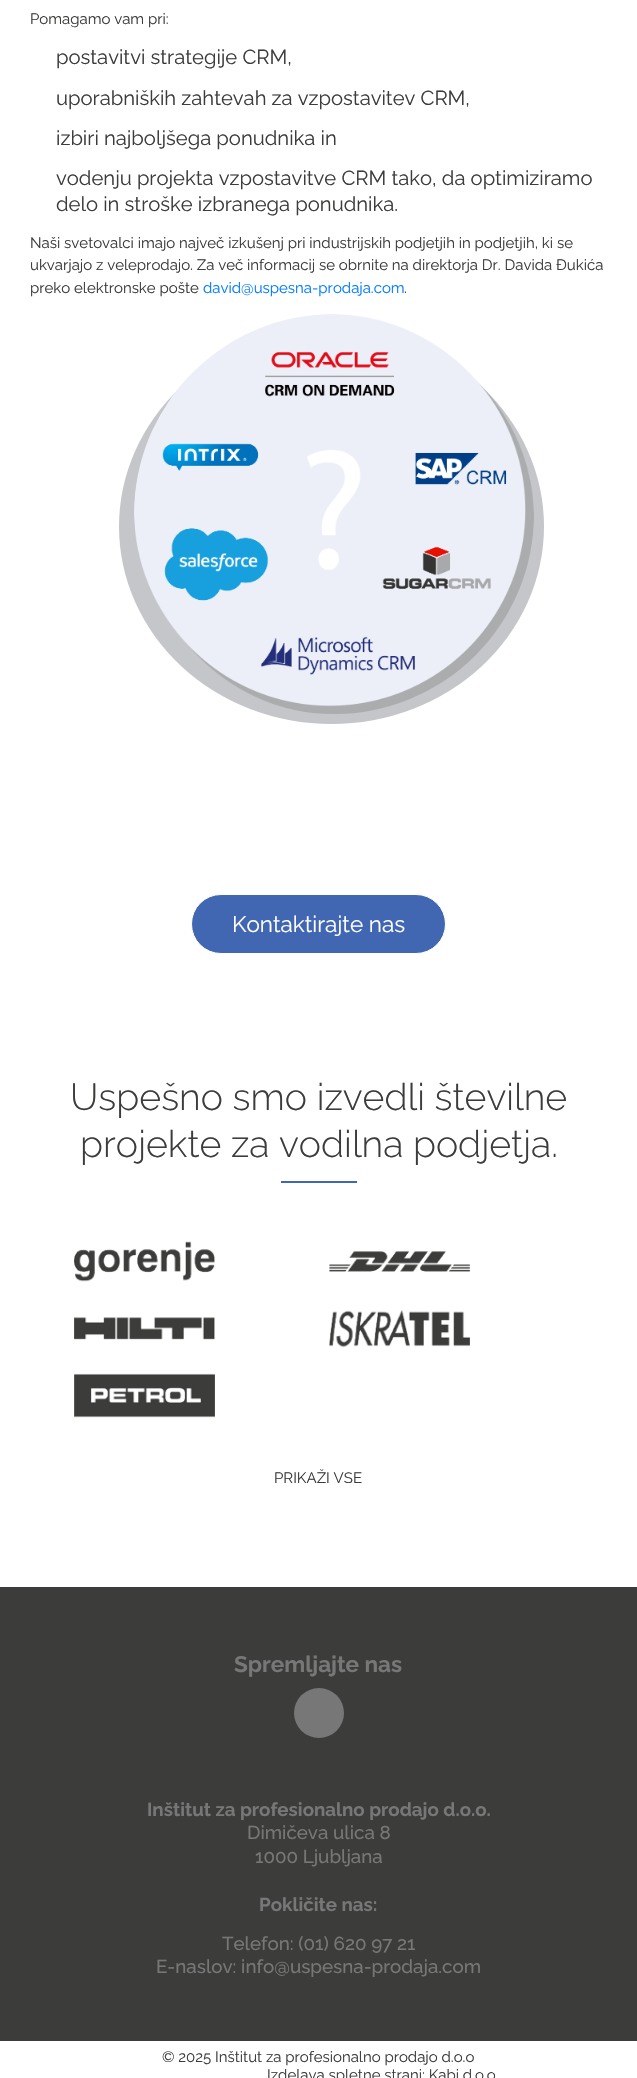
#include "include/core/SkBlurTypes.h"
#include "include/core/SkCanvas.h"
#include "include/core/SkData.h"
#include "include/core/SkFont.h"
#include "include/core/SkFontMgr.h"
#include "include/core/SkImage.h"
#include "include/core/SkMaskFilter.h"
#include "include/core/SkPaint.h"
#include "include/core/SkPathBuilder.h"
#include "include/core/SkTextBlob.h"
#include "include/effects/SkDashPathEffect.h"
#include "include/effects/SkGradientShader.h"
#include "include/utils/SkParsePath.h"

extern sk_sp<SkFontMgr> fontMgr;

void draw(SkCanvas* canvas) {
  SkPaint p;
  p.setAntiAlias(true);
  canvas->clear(SK_ColorWHITE);
  p.setColor(SkColorSetRGB(196, 198, 202));
  canvas->drawOval(SkRect::MakeLTRB(119, 329, 544, 724), p);
  canvas->drawImageRect(SkImages::DeferredFromEncodedData(SkData::MakeFromFileName("images/1.png")), SkRect::MakeLTRB(134, 314, 534, 714), SkSamplingOptions());
  p.setColor(SkColorSetRGB(66, 103, 178));
  canvas->drawRoundRect(SkRect::MakeLTRB(191.5f, 894.5f, 445.5f, 953.5f), 29.5f, 29.5f, p);
  p.setStyle(SkPaint::kStroke_Style);
  p.setStrokeWidth(1);
  p.setColor(SK_ColorWHITE);
  canvas->drawRoundRect(SkRect::MakeLTRB(191.5f, 894.5f, 445.5f, 953.5f), 29.5f, 29.5f, p);
  p.setStyle(SkPaint::kFill_Style);
  p.setColor(SkColorSetRGB(66, 103, 178));
  canvas->drawRect(SkRect::MakeLTRB(281, 1181, 357, 1183), p);
  canvas->drawImageRect(SkImages::DeferredFromEncodedData(SkData::MakeFromFileName("images/2.png")), SkRect::MakeLTRB(74, 1241, 215, 1282), SkSamplingOptions());
  canvas->drawImageRect(SkImages::DeferredFromEncodedData(SkData::MakeFromFileName("images/3.png")), SkRect::MakeLTRB(329, 1251, 470, 1272), SkSamplingOptions());
  canvas->drawImageRect(SkImages::DeferredFromEncodedData(SkData::MakeFromFileName("images/4.png")), SkRect::MakeLTRB(74, 1317, 215, 1340), SkSamplingOptions());
  canvas->drawImageRect(SkImages::DeferredFromEncodedData(SkData::MakeFromFileName("images/5.png")), SkRect::MakeLTRB(329, 1310, 470, 1348), SkSamplingOptions());
  canvas->drawImageRect(SkImages::DeferredFromEncodedData(SkData::MakeFromFileName("images/6.png")), SkRect::MakeLTRB(74, 1373, 215, 1418), SkSamplingOptions());
  p.setColor(SkColorSetRGB(60, 60, 59));
  canvas->drawRect(SkRect::MakeLTRB(0, 1587, 637, 2041), p);
  p.setColor(SkColorSetRGB(120, 119, 119));
  canvas->drawCircle(319, 1713, 25, p);
  SkFont font1(fontMgr->matchFamilyStyle("Raleway", SkFontStyle::Normal()), 15);
  font1.setSubpixel(true);
  p.setColor(SkColorSetRGB(60, 60, 59));
  canvas->drawString("Pomagamo vam pri:", 30, 24, font1, p);
  SkFont font2(fontMgr->matchFamilyStyle("Raleway", SkFontStyle::Normal()), 20.25f);
  font2.setSubpixel(true);
  canvas->drawString("postavitvi strategije CRM,", 56, 64, font2, p);
  canvas->drawString("uporabniških zahtevah za vzpostavitev CRM,", 56, 105, font2, p);
  canvas->drawString("izbiri najboljšega ponudnika in", 56, 145, font2, p);
  canvas->drawString("vodenju projekta vzpostavitve CRM tako, da optimiziramo", 56, 185, font2, p);
  canvas->drawString("delo in stroške izbranega ponudnika.", 56, 211, font2, p);
  canvas->drawString("Naši svetovalci imajo največ izkušenj pri industrijskih podjetjih in podjetjih, ki se", 30, 248, font1, p);
  canvas->drawString("ukvarjajo z veleprodajo. Za več informacij se obrnite na direktorja Dr. Davida Đukića", 30, 270, font1, p);
  canvas->drawString("preko elektronske pošte", 30, 293, font1, p);
  p.setColor(SkColorSetRGB(0, 123, 255));
  canvas->drawString("david@uspesna-prodaja.com", 203, 293, font1, p);
  p.setColor(SkColorSetRGB(60, 60, 59));
  canvas->drawString(".", 404, 293, font1, p);
  SkFont font3(fontMgr->matchFamilyStyle("Raleway", SkFontStyle::Normal()), 22.5f);
  font3.setSubpixel(true);
  p.setColor(SK_ColorWHITE);
  canvas->drawString("Kontaktirajte nas", 232, 932, font3, p);
  SkFont font4(fontMgr->matchFamilyStyle("Raleway", SkFontStyle(300, SkFontStyle::kNormal_Width, SkFontStyle::kUpright_Slant)), 37.5f);
  font4.setSubpixel(true);
  p.setColor(SkColorSetRGB(60, 60, 59));
  canvas->drawString("Uspešno smo izvedli številne", 70, 1110, font4, p);
  canvas->drawString("projekte za vodilna podjetja.", 80, 1157, font4, p);
  canvas->drawString("PRIKAŽI VSE", 274, 1483, font1, p);
  SkFont font5(fontMgr->matchFamilyStyle("Raleway", SkFontStyle::Bold()), 22.5f);
  font5.setSubpixel(true);
  p.setColor(SkColorSetRGB(120, 119, 119));
  canvas->drawString("Spremljajte nas", 234, 1672, font5, p);
  SkFont font6(fontMgr->matchFamilyStyle("Raleway", SkFontStyle::Bold()), 18.75f);
  font6.setSubpixel(true);
  canvas->drawString("Inštitut za profesionalno prodajo d.o.o.", 147, 1816, font6, p);
  SkFont font7(fontMgr->matchFamilyStyle("Raleway", SkFontStyle(500, SkFontStyle::kNormal_Width, SkFontStyle::kUpright_Slant)), 18.75f);
  font7.setSubpixel(true);
  canvas->drawString("Dimičeva ulica 8", 247, 1839, font7, p);
  canvas->drawString("1000 Ljubljana", 255, 1863, font7, p);
  canvas->drawString("Pokličite nas:", 259, 1911, font6, p);
  canvas->drawString("Telefon: (01) 620 97 21", 222, 1950, font7, p);
  canvas->drawString("E-naslov: info@uspesna-prodaja.com", 156, 1973, font7, p);
  p.setColor(SkColorSetRGB(60, 60, 59));
  canvas->drawString("© 2025 Inštitut za profesionalno prodajo d.o.o", 162, 2062, font1, p);
  canvas->drawString("Izdelava spletne strani: Kabi d.o.o", 267, 2080, font1, p);
}
